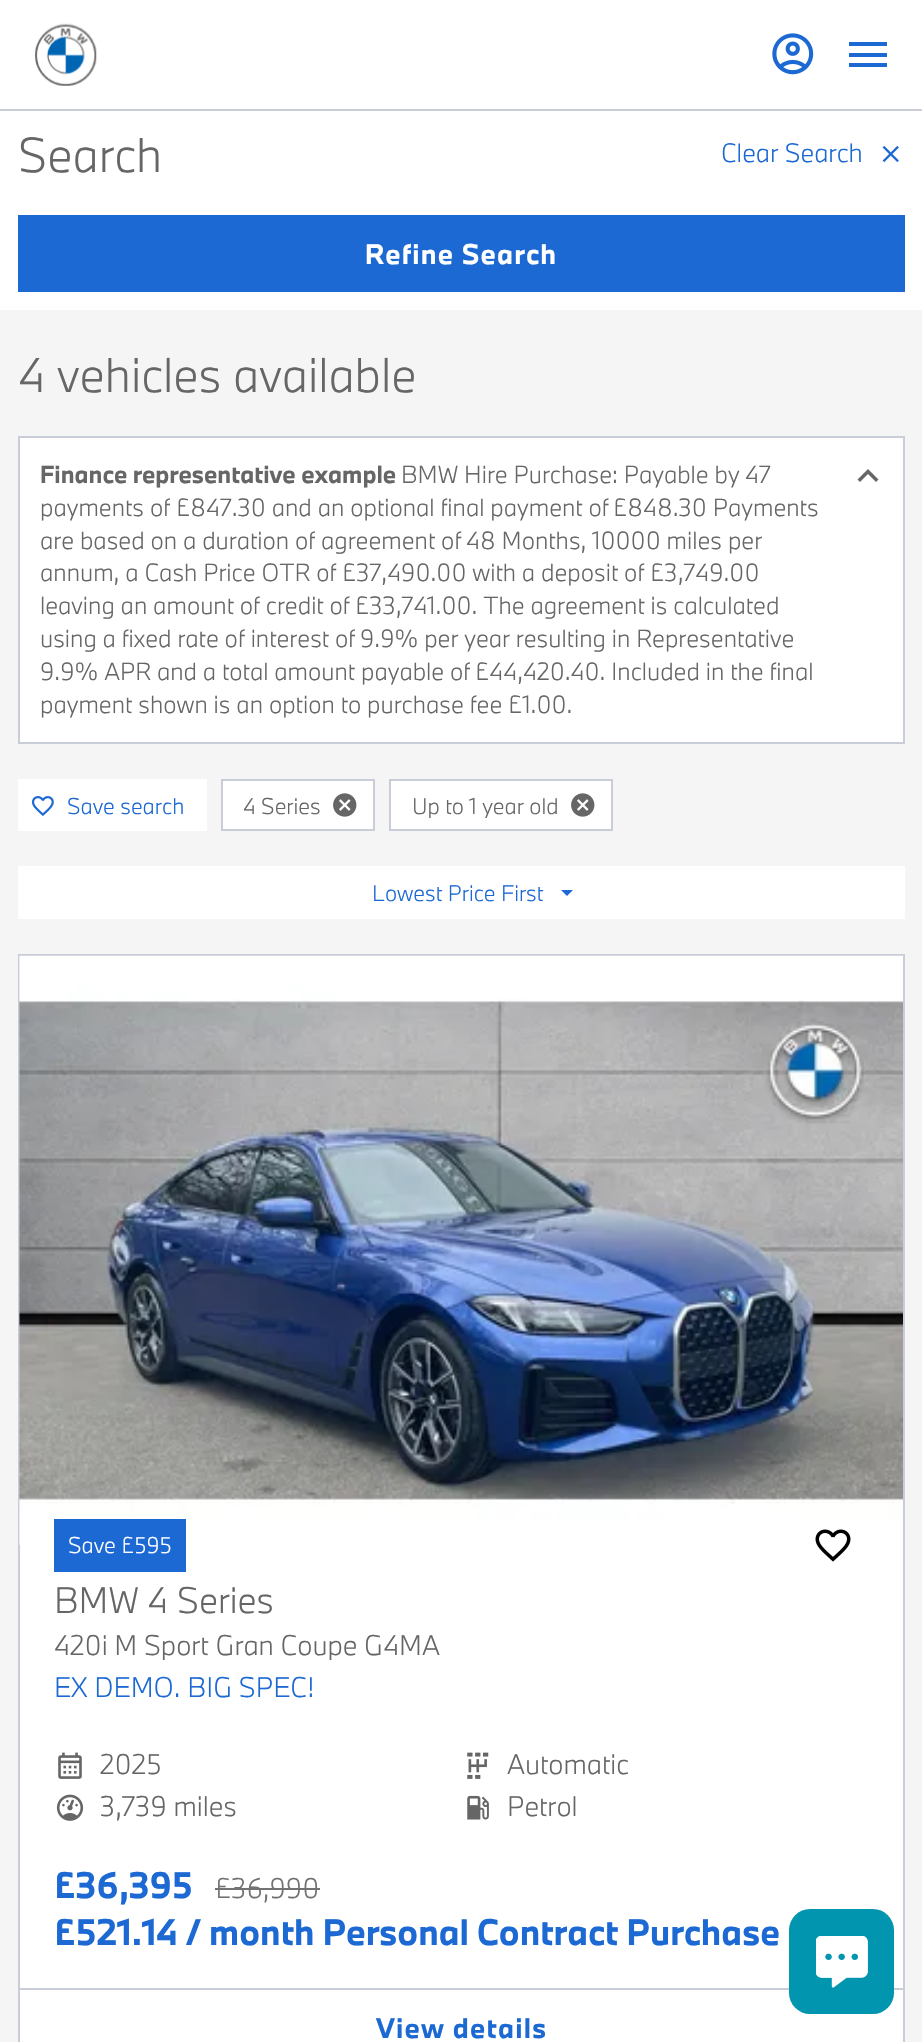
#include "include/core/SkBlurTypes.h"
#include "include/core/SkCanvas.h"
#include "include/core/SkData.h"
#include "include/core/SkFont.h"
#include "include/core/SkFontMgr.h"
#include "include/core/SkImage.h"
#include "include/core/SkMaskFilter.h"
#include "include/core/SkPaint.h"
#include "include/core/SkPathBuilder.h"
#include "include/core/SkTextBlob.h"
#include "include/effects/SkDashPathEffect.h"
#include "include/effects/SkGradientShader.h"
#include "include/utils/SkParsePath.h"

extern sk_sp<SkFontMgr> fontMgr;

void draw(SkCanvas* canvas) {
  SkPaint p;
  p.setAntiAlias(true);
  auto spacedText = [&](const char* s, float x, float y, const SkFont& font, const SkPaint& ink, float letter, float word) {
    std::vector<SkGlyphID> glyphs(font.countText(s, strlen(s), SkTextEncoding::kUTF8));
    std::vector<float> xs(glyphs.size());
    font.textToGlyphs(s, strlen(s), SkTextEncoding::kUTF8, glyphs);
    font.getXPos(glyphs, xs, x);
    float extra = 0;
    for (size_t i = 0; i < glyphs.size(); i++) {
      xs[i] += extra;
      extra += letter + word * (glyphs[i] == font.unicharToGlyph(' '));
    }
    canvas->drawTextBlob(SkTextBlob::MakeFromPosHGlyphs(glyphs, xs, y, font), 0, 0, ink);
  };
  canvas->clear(SK_ColorWHITE);
  p.setColor(SkColorSetRGB(200, 205, 215));
  canvas->drawRect(SkRect::MakeLTRB(0, 109, 922, 111), p);
  canvas->drawImageRect(SkImages::DeferredFromEncodedData(SkData::MakeFromFileName("images/1.png")), SkRect::MakeLTRB(35, 23, 97, 86), SkSamplingOptions());
  canvas->drawImageRect(SkImages::DeferredFromEncodedData(SkData::MakeFromFileName("images/2.png")), SkRect::MakeLTRB(772, 33, 814, 75), SkSamplingOptions());
  p.setColor(SkColorSetRGB(28, 105, 212));
  canvas->drawRect(SkRect::MakeLTRB(849, 63, 887, 67), p);
  canvas->drawRect(SkRect::MakeLTRB(849, 42, 887, 46), p);
  canvas->drawRect(SkRect::MakeLTRB(849, 53, 887, 57), p);
  canvas->drawImageRect(SkImages::DeferredFromEncodedData(SkData::MakeFromFileName("images/3.png")), SkRect::MakeLTRB(882, 145, 899, 163), SkSamplingOptions());
  canvas->drawRect(SkRect::MakeLTRB(18, 215, 905, 292), p);
  p.setColor(SkColorSetRGB(245, 245, 246));
  canvas->drawRect(SkRect::MakeLTRB(0, 310, 922, 2042), p);
  p.setColor(SK_ColorWHITE);
  canvas->drawRect(SkRect::MakeLTRB(19, 437, 904, 743), p);
  p.setStyle(SkPaint::kStroke_Style);
  p.setStrokeWidth(2);
  p.setColor(SkColorSetRGB(200, 205, 215));
  canvas->drawRect(SkRect::MakeLTRB(19, 437, 904, 743), p);
  p.setStyle(SkPaint::kFill_Style);
  p.setColor(SkColorSetRGB(102, 102, 102));
  canvas->drawPath(SkPathBuilder().moveTo(860, 482).lineTo(868, 474).lineTo(876, 482).lineTo(878.5f, 479.5f).lineTo(868, 469).lineTo(857.5f, 479.5f).close().detach(), p);
  p.setColor(SK_ColorWHITE);
  canvas->drawRect(SkRect::MakeLTRB(18, 779, 207, 831), p);
  canvas->drawImageRect(SkImages::DeferredFromEncodedData(SkData::MakeFromFileName("images/4.png")), SkRect::MakeLTRB(32, 796, 54, 816), SkSamplingOptions());
  canvas->drawRect(SkRect::MakeLTRB(222, 780, 374, 830), p);
  p.setStyle(SkPaint::kStroke_Style);
  p.setColor(SkColorSetRGB(200, 205, 215));
  canvas->drawRect(SkRect::MakeLTRB(222, 780, 374, 830), p);
  canvas->drawImageRect(SkImages::DeferredFromEncodedData(SkData::MakeFromFileName("images/5.png")), SkRect::MakeLTRB(333, 793, 357, 817), SkSamplingOptions());
  p.setStyle(SkPaint::kFill_Style);
  p.setColor(SK_ColorWHITE);
  canvas->drawRect(SkRect::MakeLTRB(390, 780, 612, 830), p);
  p.setStyle(SkPaint::kStroke_Style);
  p.setColor(SkColorSetRGB(200, 205, 215));
  canvas->drawRect(SkRect::MakeLTRB(390, 780, 612, 830), p);
  canvas->drawImageRect(SkImages::DeferredFromEncodedData(SkData::MakeFromFileName("images/5.png")), SkRect::MakeLTRB(571, 793, 595, 817), SkSamplingOptions());
  p.setStyle(SkPaint::kFill_Style);
  p.setColor(SK_ColorWHITE);
  canvas->drawRect(SkRect::MakeLTRB(18, 866, 905, 919), p);
  p.setColor(SkColorSetRGB(28, 105, 212));
  canvas->drawPath(SkPathBuilder().moveTo(561, 890).lineTo(567, 896).lineTo(573, 890).close().detach(), p);
  p.setColor(SK_ColorWHITE);
  canvas->drawRect(SkRect::MakeLTRB(20, 1545, 903, 2042), p);
  p.setStyle(SkPaint::kStroke_Style);
  p.setColor(SkColorSetRGB(200, 205, 215));
  canvas->drawRect(SkRect::MakeLTRB(19, 955, 904, 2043), p);
  canvas->drawImageRect(SkImages::DeferredFromEncodedData(SkData::MakeFromFileName("images/6.png")), SkRect::MakeLTRB(19, 955, 903, 1545), SkSamplingOptions());
  p.setStyle(SkPaint::kFill_Style);
  p.setColor(SkColorSetRGB(28, 105, 212));
  canvas->drawRect(SkRect::MakeLTRB(54, 1519, 186, 1572), p);
  canvas->drawImageRect(SkImages::DeferredFromEncodedData(SkData::MakeFromFileName("images/7.png")), SkRect::MakeLTRB(815, 1529, 851, 1562), SkSamplingOptions());
  canvas->drawImageRect(SkImages::DeferredFromEncodedData(SkData::MakeFromFileName("images/8.png")), SkRect::MakeLTRB(58, 1752, 82, 1779), SkSamplingOptions());
  canvas->drawImageRect(SkImages::DeferredFromEncodedData(SkData::MakeFromFileName("images/9.png")), SkRect::MakeLTRB(467, 1752, 489, 1779), SkSamplingOptions());
  canvas->drawImageRect(SkImages::DeferredFromEncodedData(SkData::MakeFromFileName("images/10.png")), SkRect::MakeLTRB(56, 1794, 84, 1821), SkSamplingOptions());
  canvas->drawImageRect(SkImages::DeferredFromEncodedData(SkData::MakeFromFileName("images/11.png")), SkRect::MakeLTRB(467, 1795, 489, 1820), SkSamplingOptions());
  p.setColor(SkColorSetRGB(114, 114, 114));
  canvas->drawRect(SkRect::MakeLTRB(215, 1888, 320, 1890), p);
  canvas->drawImageRect(SkImages::DeferredFromEncodedData(SkData::MakeFromFileName("images/12.png")), SkRect::MakeLTRB(789, 1928, 790, 1930), SkSamplingOptions());
  p.setColor(SkColorSetRGB(200, 205, 215));
  canvas->drawRect(SkRect::MakeLTRB(19, 1988, 903, 1990), p);
  p.setColor(SkColorSetRGB(1, 149, 175));
  canvas->drawRoundRect(SkRect::MakeLTRB(789, 1909, 894, 2014), 21, 21, p);
  canvas->drawImageRect(SkImages::DeferredFromEncodedData(SkData::MakeFromFileName("images/13.png")), SkRect::MakeLTRB(816, 1936, 868, 1988), SkSamplingOptions());
  SkFont font1(fontMgr->matchFamilyStyle("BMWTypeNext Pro", SkFontStyle(300, SkFontStyle::kNormal_Width, SkFontStyle::kUpright_Slant)), 45.25f);
  font1.setSubpixel(true);
  p.setColor(SkColorSetRGB(102, 102, 102));
  canvas->drawString("Search", 18, 172, font1, p);
  SkFont font2(fontMgr->matchFamilyStyle("BMWTypeNext Pro", SkFontStyle(300, SkFontStyle::kNormal_Width, SkFontStyle::kUpright_Slant)), 24.5f);
  font2.setSubpixel(true);
  p.setColor(SkColorSetRGB(28, 105, 212));
  canvas->drawString("Clear Search", 721, 162, font2, p);
  SkFont font3(fontMgr->matchFamilyStyle("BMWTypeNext", SkFontStyle::Bold()), 26.25f);
  font3.setSubpixel(true);
  p.setColor(SK_ColorWHITE);
  spacedText("Refine Search", 365, 264, font3, p, 1.25f, 0);
  p.setColor(SkColorSetRGB(102, 102, 102));
  canvas->drawString("4 vehicles available", 18, 392, font1, p);
  SkFont font4(fontMgr->matchFamilyStyle("BMWTypeNext", SkFontStyle::Bold()), 23);
  font4.setSubpixel(true);
  canvas->drawString("Finance representative example", 40, 483, font4, p);
  SkFont font5(fontMgr->matchFamilyStyle("BMWTypeNext Pro", SkFontStyle(300, SkFontStyle::kNormal_Width, SkFontStyle::kUpright_Slant)), 23);
  font5.setSubpixel(true);
  canvas->drawString("BMW Hire Purchase: Payable by", 401, 483, font5, p);
  canvas->drawString("47", 745, 483, font5, p);
  canvas->drawString("payments of £847.30 and an optional final payment of", 40, 516, font5, p);
  canvas->drawString("£848.30 Payments", 613, 516, font5, p);
  canvas->drawString("are based on a duration of agreement of", 40, 549, font5, p);
  canvas->drawString("48 Months, 10000 miles per", 466, 549, font5, p);
  canvas->drawString("annum, a Cash Price OTR of", 40, 581, font5, p);
  canvas->drawString("£37,490.00 with a deposit of £3,749.00", 342, 581, font5, p);
  canvas->drawString("leaving an amount of credit of", 40, 614, font5, p);
  canvas->drawString("£33,741.00. The agreement is calculated", 355, 614, font5, p);
  canvas->drawString("using a fixed rate of interest of", 40, 647, font5, p);
  canvas->drawString("9.9% per year resulting in Representative", 360, 647, font5, p);
  canvas->drawString("9.9% APR and a total amount payable of", 40, 680, font5, p);
  canvas->drawString("£44,420.40. Included in the final", 475, 680, font5, p);
  canvas->drawString("payment shown is an option to purchase fee £1.00.", 40, 713, font5, p);
  SkFont font6(fontMgr->matchFamilyStyle("BMWTypeNext Pro", SkFontStyle(300, SkFontStyle::kNormal_Width, SkFontStyle::kUpright_Slant)), 21);
  font6.setSubpixel(true);
  p.setColor(SkColorSetRGB(28, 105, 212));
  canvas->drawString("Save search", 67, 814, font6, p);
  p.setColor(SkColorSetRGB(102, 102, 102));
  canvas->drawString("4 Series", 243, 814, font6, p);
  canvas->drawString("Up to 1 year old", 412, 814, font6, p);
  p.setColor(SkColorSetRGB(28, 105, 212));
  canvas->drawString("Lowest Price First", 372, 901, font6, p);
  p.setColor(SK_ColorWHITE);
  canvas->drawString("Save £595", 68, 1553, font6, p);
  SkFont font7(fontMgr->matchFamilyStyle("BMWTypeNext Pro", SkFontStyle(300, SkFontStyle::kNormal_Width, SkFontStyle::kUpright_Slant)), 34.1f);
  font7.setSubpixel(true);
  p.setColor(SkColorSetRGB(102, 102, 102));
  canvas->drawString("BMW 4 Series", 54, 1613, font7, p);
  SkFont font8(fontMgr->matchFamilyStyle("BMWTypeNext Pro", SkFontStyle(300, SkFontStyle::kNormal_Width, SkFontStyle::kUpright_Slant)), 26.25f);
  font8.setSubpixel(true);
  canvas->drawString("420i M Sport Gran Coupe G4MA", 54, 1655, font8, p);
  p.setColor(SkColorSetRGB(28, 105, 212));
  canvas->drawString("EX DEMO. BIG SPEC!", 54, 1697, font8, p);
  p.setColor(SkColorSetRGB(102, 102, 102));
  canvas->drawString("2025", 100, 1774, font8, p);
  canvas->drawString("Automatic", 507, 1774, font8, p);
  canvas->drawString("3,739 miles", 100, 1816, font8, p);
  canvas->drawString("Petrol", 507, 1816, font8, p);
  SkFont font9(fontMgr->matchFamilyStyle("BMWTypeNext", SkFontStyle::Bold()), 34.1f);
  font9.setSubpixel(true);
  p.setColor(SkColorSetRGB(28, 105, 212));
  canvas->drawString("£36,395", 54, 1898, font9, p);
  p.setColor(SkColorSetRGB(114, 114, 114));
  canvas->drawString("£36,990", 215, 1898, font8, p);
  p.setColor(SkColorSetRGB(28, 105, 212));
  canvas->drawString("£521.14 / month Personal Contract Purchase", 54, 1945, font9, p);
  spacedText("View details", 376, 2038, font3, p, 1.25f, 0);
}
